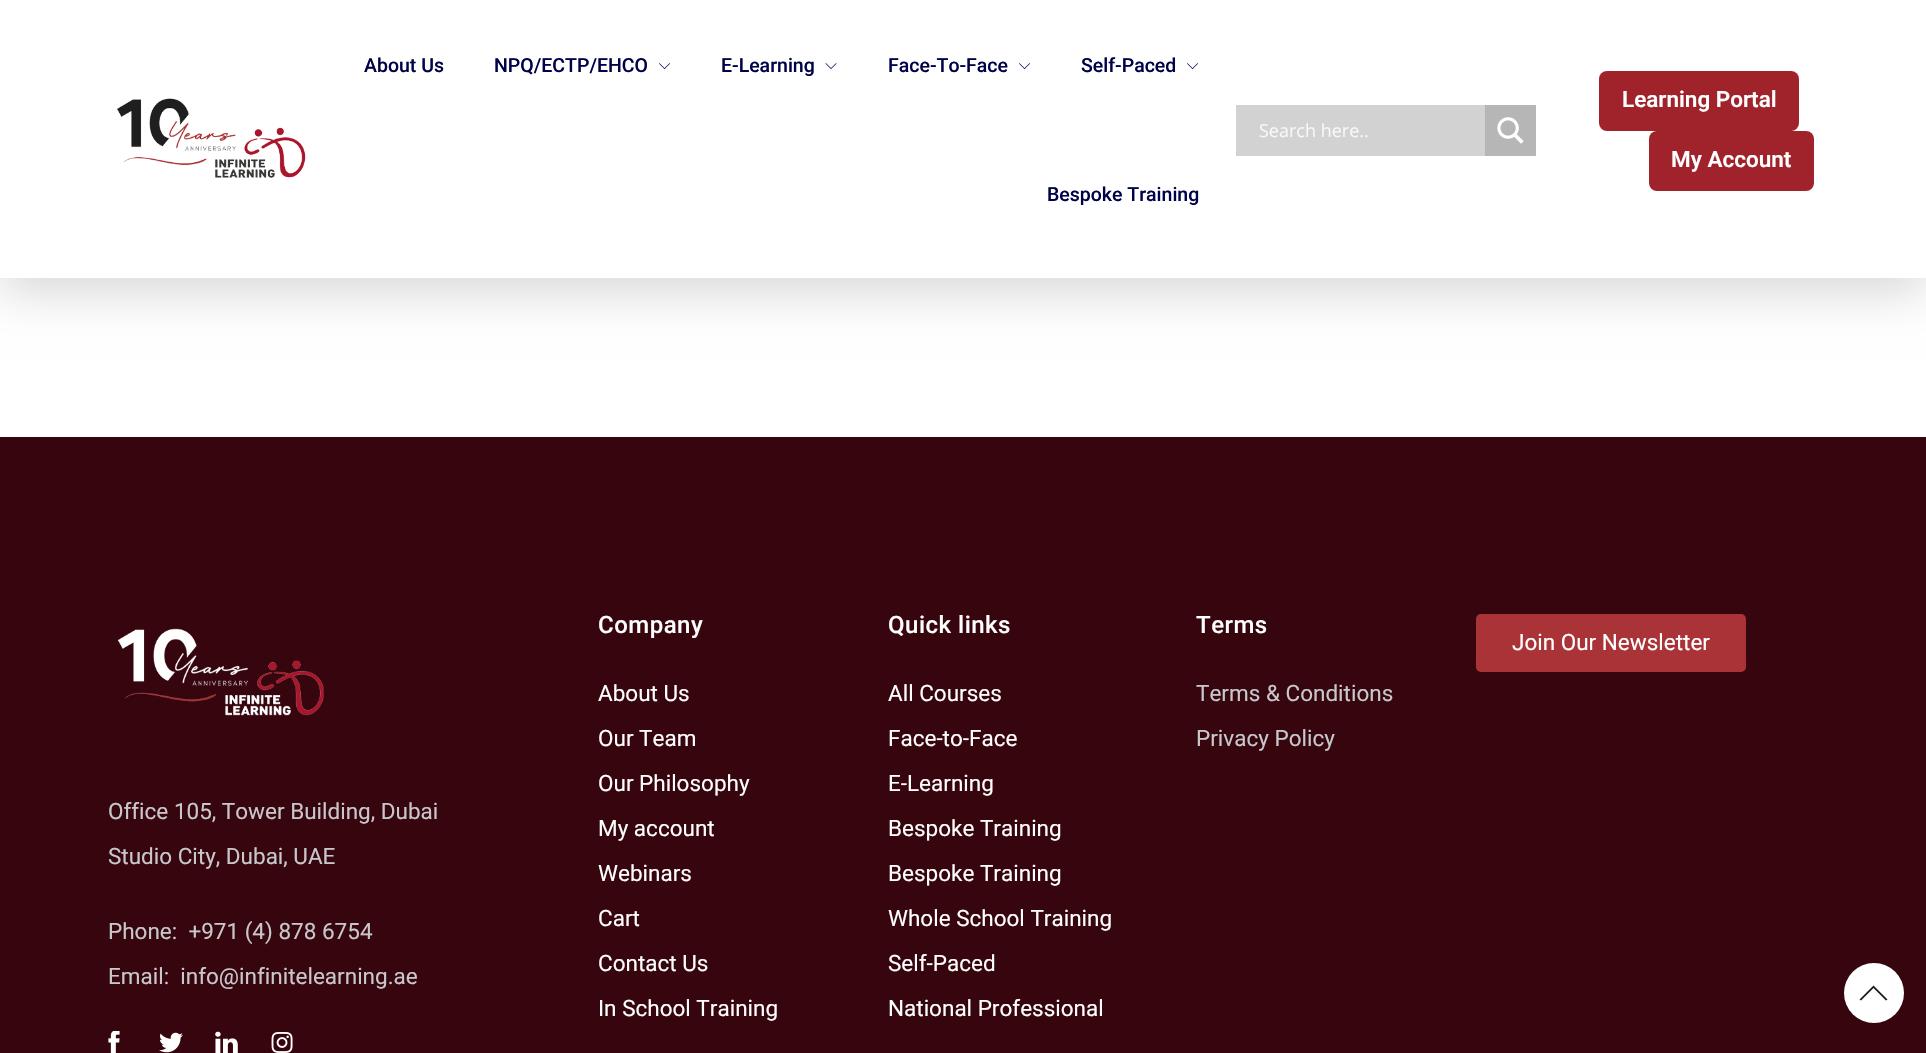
#include "include/core/SkBlurTypes.h"
#include "include/core/SkCanvas.h"
#include "include/core/SkData.h"
#include "include/core/SkFont.h"
#include "include/core/SkFontMgr.h"
#include "include/core/SkImage.h"
#include "include/core/SkMaskFilter.h"
#include "include/core/SkPaint.h"
#include "include/core/SkPathBuilder.h"
#include "include/core/SkTextBlob.h"
#include "include/effects/SkDashPathEffect.h"
#include "include/effects/SkGradientShader.h"
#include "include/utils/SkParsePath.h"

extern sk_sp<SkFontMgr> fontMgr;

void draw(SkCanvas* canvas) {
  SkPaint p;
  p.setAntiAlias(true);
  auto spacedText = [&](const char* s, float x, float y, const SkFont& font, const SkPaint& ink, float letter, float word) {
    std::vector<SkGlyphID> glyphs(font.countText(s, strlen(s), SkTextEncoding::kUTF8));
    std::vector<float> xs(glyphs.size());
    font.textToGlyphs(s, strlen(s), SkTextEncoding::kUTF8, glyphs);
    font.getXPos(glyphs, xs, x);
    float extra = 0;
    for (size_t i = 0; i < glyphs.size(); i++) {
      xs[i] += extra;
      extra += letter + word * (glyphs[i] == font.unicharToGlyph(' '));
    }
    canvas->drawTextBlob(SkTextBlob::MakeFromPosHGlyphs(glyphs, xs, y, font), 0, 0, ink);
  };
  canvas->clear(SK_ColorWHITE);
  p.setColor(SkColorSetARGB(38, 0, 0, 0));
  p.setMaskFilter(SkMaskFilter::MakeBlur(kNormal_SkBlurStyle, 22.5f));
  canvas->drawRect(SkRect::MakeLTRB(0, 15, 1926, 293), p);
  p.setMaskFilter(nullptr);
  p.setColor(SK_ColorWHITE);
  canvas->drawRect(SkRect::MakeLTRB(0, 0, 1926, 278), p);
  canvas->drawImageRect(SkImages::DeferredFromEncodedData(SkData::MakeFromFileName("images/1.png")), SkRect::MakeLTRB(117, 98, 306, 178), SkSamplingOptions());
  canvas->drawImageRect(SkImages::DeferredFromEncodedData(SkData::MakeFromFileName("images/2.png")), SkRect::MakeLTRB(659, 63, 670, 69), SkSamplingOptions());
  canvas->drawImageRect(SkImages::DeferredFromEncodedData(SkData::MakeFromFileName("images/3.png")), SkRect::MakeLTRB(825, 63, 837, 69), SkSamplingOptions());
  canvas->drawImageRect(SkImages::DeferredFromEncodedData(SkData::MakeFromFileName("images/2.png")), SkRect::MakeLTRB(1019, 63, 1030, 69), SkSamplingOptions());
  canvas->drawImageRect(SkImages::DeferredFromEncodedData(SkData::MakeFromFileName("images/2.png")), SkRect::MakeLTRB(1187, 63, 1198, 69), SkSamplingOptions());
  p.setColor(SkColorSetRGB(210, 210, 210));
  canvas->drawRect(SkRect::MakeLTRB(1236, 105, 1485, 156), p);
  p.setColor(SkColorSetRGB(182, 182, 182));
  canvas->drawRect(SkRect::MakeLTRB(1485, 105, 1536, 156), p);
  canvas->drawImageRect(SkImages::DeferredFromEncodedData(SkData::MakeFromFileName("images/4.png")), SkRect::MakeLTRB(1497, 117, 1524, 144), SkSamplingOptions());
  p.setColor(SkColorSetRGB(160, 34, 43));
  canvas->drawRoundRect(SkRect::MakeLTRB(1599, 71, 1799, 131), 8, 8, p);
  canvas->drawRoundRect(SkRect::MakeLTRB(1649, 131, 1814, 191), 8, 8, p);
  p.setColor(SkColorSetRGB(54, 5, 13));
  canvas->drawRect(SkRect::MakeLTRB(0, 437, 1926, 1053), p);
  p.setColor(SkColorSetRGB(169, 51, 54));
  canvas->drawRoundRect(SkRect::MakeLTRB(1476, 614, 1746, 672), 5, 5, p);
  canvas->drawImageRect(SkImages::DeferredFromEncodedData(SkData::MakeFromFileName("images/5.png")), SkRect::MakeLTRB(117, 628, 324, 716), SkSamplingOptions());
  canvas->drawImageRect(SkImages::DeferredFromEncodedData(SkData::MakeFromFileName("images/6.png")), SkRect::MakeLTRB(108, 1031, 120, 1053), SkSamplingOptions());
  canvas->drawImageRect(SkImages::DeferredFromEncodedData(SkData::MakeFromFileName("images/7.png")), SkRect::MakeLTRB(159, 1032, 183, 1053), SkSamplingOptions());
  canvas->drawImageRect(SkImages::DeferredFromEncodedData(SkData::MakeFromFileName("images/8.png")), SkRect::MakeLTRB(215, 1031, 238, 1053), SkSamplingOptions());
  canvas->drawImageRect(SkImages::DeferredFromEncodedData(SkData::MakeFromFileName("images/9.png")), SkRect::MakeLTRB(271, 1032, 293, 1053), SkSamplingOptions());
  p.setColor(SK_ColorWHITE);
  canvas->drawCircle(1874, 993, 30, p);
  p.setColor(SkColorSetRGB(25, 25, 25));
  canvas->drawPath(SkPathBuilder().moveTo(1887.5f, 999.5f).lineTo(1886, 1000.5f).lineTo(1873.5f, 988).lineTo(1861, 1000.5f).lineTo(1859.5f, 999.5f).lineTo(1873.5f, 985.5f).close().detach(), p);
  SkFont font1(fontMgr->matchFamilyStyle("Roboto", SkFontStyle(500, SkFontStyle::kNormal_Width, SkFontStyle::kUpright_Slant)), 19.5f);
  font1.setSubpixel(true);
  p.setColor(SkColorSetRGB(0, 2, 72));
  canvas->drawString("About Us", 364, 72, font1, p);
  canvas->drawString("NPQ/ECTP/EHCO", 494, 72, font1, p);
  canvas->drawString("E-Learning", 721, 72, font1, p);
  canvas->drawString("Face-To-Face", 888, 72, font1, p);
  canvas->drawString("Self-Paced", 1081, 72, font1, p);
  canvas->drawString("Bespoke Training", 1047, 201, font1, p);
  SkFont font2(fontMgr->matchFamilyStyle("Open Sans", SkFontStyle::Normal()), 18);
  font2.setSubpixel(true);
  p.setColor(SkColorSetRGB(248, 248, 248));
  canvas->drawString("Search here..", 1259, 137, font2, p);
  SkFont font3(fontMgr->matchFamilyStyle("Roboto", SkFontStyle(600, SkFontStyle::kNormal_Width, SkFontStyle::kUpright_Slant)), 22.5f);
  font3.setSubpixel(true);
  p.setColor(SK_ColorWHITE);
  canvas->drawString("Learning Portal", 1622, 107, font3, p);
  canvas->drawString("My Account", 1671, 167, font3, p);
  SkFont font4(fontMgr->matchFamilyStyle("Roboto", SkFontStyle(500, SkFontStyle::kNormal_Width, SkFontStyle::kUpright_Slant)), 24);
  font4.setSubpixel(true);
  spacedText("Company", 598, 633, font4, p, 0.5f, 0);
  SkFont font5(fontMgr->matchFamilyStyle("Roboto", SkFontStyle::Normal()), 22.5f);
  font5.setSubpixel(true);
  canvas->drawString("About Us", 598, 701, font5, p);
  canvas->drawString("Our Team", 598, 746, font5, p);
  canvas->drawString("Our Philosophy", 598, 791, font5, p);
  canvas->drawString("My account", 598, 836, font5, p);
  canvas->drawString("Webinars", 598, 881, font5, p);
  canvas->drawString("Cart", 598, 926, font5, p);
  canvas->drawString("Contact Us", 598, 971, font5, p);
  canvas->drawString("In School Training", 598, 1016, font5, p);
  spacedText("Quick links", 888, 633, font4, p, 0.5f, 0);
  canvas->drawString("All Courses", 888, 701, font5, p);
  canvas->drawString("Face-to-Face", 888, 746, font5, p);
  canvas->drawString("E-Learning", 888, 791, font5, p);
  canvas->drawString("Bespoke Training", 888, 836, font5, p);
  canvas->drawString("Bespoke Training", 888, 881, font5, p);
  canvas->drawString("Whole School Training", 888, 926, font5, p);
  canvas->drawString("Self-Paced", 888, 971, font5, p);
  canvas->drawString("National Professional", 888, 1016, font5, p);
  spacedText("Terms", 1196, 633, font4, p, 0.5f, 0);
  p.setColor(SkColorSetRGB(199, 199, 204));
  canvas->drawString("Terms & Conditions", 1196, 701, font5, p);
  canvas->drawString("Privacy Policy", 1196, 746, font5, p);
  p.setColor(SK_ColorWHITE);
  canvas->drawString("Join Our Newsletter", 1512, 650, font5, p);
  p.setColor(SkColorSetRGB(199, 199, 204));
  canvas->drawString("Office 105, Tower Building, Dubai", 108, 819, font5, p);
  canvas->drawString("Studio City, Dubai, UAE", 108, 864, font5, p);
  canvas->drawString("Phone:  +971 (4) 878 6754", 108, 939, font5, p);
  canvas->drawString("Email:  info@infinitelearning.ae", 108, 984, font5, p);
}
